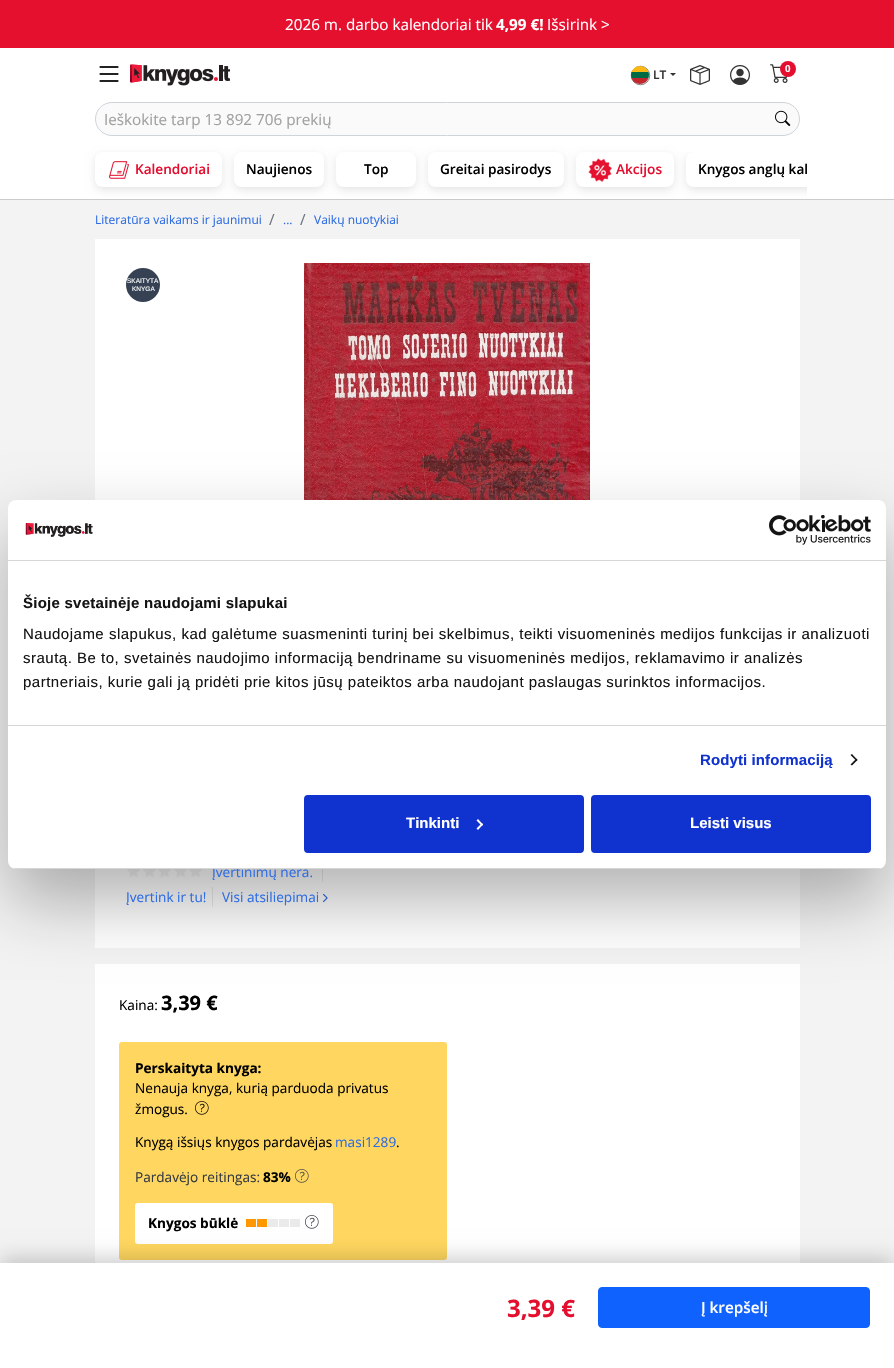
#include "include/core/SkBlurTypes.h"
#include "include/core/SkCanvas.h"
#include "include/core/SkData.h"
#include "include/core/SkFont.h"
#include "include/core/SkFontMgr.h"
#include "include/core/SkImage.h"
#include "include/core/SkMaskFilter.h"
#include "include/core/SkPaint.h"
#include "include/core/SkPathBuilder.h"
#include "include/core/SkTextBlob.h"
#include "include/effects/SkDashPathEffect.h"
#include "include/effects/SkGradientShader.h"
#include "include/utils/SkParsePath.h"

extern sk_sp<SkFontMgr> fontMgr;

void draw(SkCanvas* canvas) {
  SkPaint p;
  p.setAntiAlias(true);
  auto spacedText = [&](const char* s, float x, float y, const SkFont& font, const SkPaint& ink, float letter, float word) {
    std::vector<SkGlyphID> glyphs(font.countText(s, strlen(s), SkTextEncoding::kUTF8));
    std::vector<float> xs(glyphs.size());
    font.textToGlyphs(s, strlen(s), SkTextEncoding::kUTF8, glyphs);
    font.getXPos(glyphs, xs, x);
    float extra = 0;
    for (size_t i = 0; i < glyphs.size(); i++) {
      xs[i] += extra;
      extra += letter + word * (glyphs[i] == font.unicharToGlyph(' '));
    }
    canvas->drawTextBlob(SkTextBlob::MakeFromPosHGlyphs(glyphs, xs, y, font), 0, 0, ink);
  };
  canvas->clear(SkColorSetRGB(243, 243, 243));
  p.setColor(SkColorSetRGB(228, 16, 46));
  canvas->drawRect(SkRect::MakeLTRB(0, 0, 894, 48), p);
  p.setColor(SK_ColorWHITE);
  canvas->drawRect(SkRect::MakeLTRB(0, 48, 894, 199), p);
  p.setColor(SkColorSetRGB(204, 204, 204));
  canvas->drawRect(SkRect::MakeLTRB(0, 199, 894, 200), p);
  canvas->drawImageRect(SkImages::DeferredFromEncodedData(SkData::MakeFromFileName("images/1.png")), SkRect::MakeLTRB(99, 66, 119, 82), SkSamplingOptions());
  canvas->drawImageRect(SkImages::DeferredFromEncodedData(SkData::MakeFromFileName("images/2.png")), SkRect::MakeLTRB(130, 64, 230, 86), SkSamplingOptions());
  canvas->drawImageRect(SkImages::DeferredFromEncodedData(SkData::MakeFromFileName("images/3.png")), SkRect::MakeLTRB(690, 65, 710, 85), SkSamplingOptions());
  canvas->drawImageRect(SkImages::DeferredFromEncodedData(SkData::MakeFromFileName("images/4.png")), SkRect::MakeLTRB(730, 65, 750, 85), SkSamplingOptions());
  canvas->drawImageRect(SkImages::DeferredFromEncodedData(SkData::MakeFromFileName("images/5.png")), SkRect::MakeLTRB(770, 64, 788, 83), SkSamplingOptions());
  p.setColor(SkColorSetRGB(228, 15, 47));
  canvas->drawCircle(788, 69, 8, p);
  p.setStyle(SkPaint::kStroke_Style);
  p.setStrokeWidth(0.5f);
  p.setColor(SK_ColorBLACK);
  canvas->drawCircle(640.5f, 75.5f, 9.25f, p);
  canvas->save();
  canvas->clipPath(SkPathBuilder().moveTo(640, 66).cubicTo(645, 66, 649, 70, 649, 75).cubicTo(649, 80, 645, 84, 640, 84).cubicTo(635, 84, 631, 80, 631, 75).cubicTo(631, 70, 635, 66, 640, 66).close().detach(), true);
  p.setStyle(SkPaint::kFill_Style);
  p.setColor(SkColorSetRGB(193, 39, 45));
  canvas->drawRect(SkRect::MakeLTRB(631, 78, 649, 84), p);
  p.setColor(SkColorSetRGB(0, 106, 68));
  canvas->drawRect(SkRect::MakeLTRB(631, 72, 649, 78), p);
  p.setColor(SkColorSetRGB(253, 185, 19));
  canvas->drawRect(SkRect::MakeLTRB(631, 66, 649, 72), p);
  canvas->restore();
  p.setColor(SkColorSetRGB(51, 51, 51));
  canvas->drawPath(SkPathBuilder().moveTo(670, 73).lineTo(676, 73).lineTo(673, 76).close().detach(), p);
  p.setColor(SkColorSetRGB(250, 250, 250));
  canvas->drawRoundRect(SkRect::MakeLTRB(95.5f, 102.5f, 799.5f, 135.5f), 16.5f, 16.5f, p);
  p.setStyle(SkPaint::kStroke_Style);
  p.setStrokeWidth(1);
  p.setColor(SkColorSetRGB(206, 212, 218));
  canvas->drawRoundRect(SkRect::MakeLTRB(95.5f, 102.5f, 799.5f, 135.5f), 16.5f, 16.5f, p);
  canvas->drawImageRect(SkImages::DeferredFromEncodedData(SkData::MakeFromFileName("images/6.png")), SkRect::MakeLTRB(775, 110, 791, 126), SkSamplingOptions());
  canvas->save();
  canvas->clipPath(SkPathBuilder(SkPathFillType::kEvenOdd).moveTo(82, 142).lineTo(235, 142).lineTo(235, 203).lineTo(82, 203).close().moveTo(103, 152).lineTo(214, 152).cubicTo(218.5f, 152, 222, 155.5f, 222, 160).lineTo(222, 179).cubicTo(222, 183.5f, 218.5f, 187, 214, 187).lineTo(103, 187).cubicTo(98.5f, 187, 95, 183.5f, 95, 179).lineTo(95, 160).cubicTo(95, 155.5f, 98.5f, 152, 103, 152).close().detach(), true);
  p.setStyle(SkPaint::kFill_Style);
  p.setColor(SkColorSetARGB(26, 0, 0, 0));
  p.setMaskFilter(SkMaskFilter::MakeBlur(kNormal_SkBlurStyle, 4));
  canvas->drawRoundRect(SkRect::MakeLTRB(95, 155, 222, 190), 8, 8, p);
  p.setMaskFilter(nullptr);
  canvas->restore();
  canvas->drawImageRect(SkImages::DeferredFromEncodedData(SkData::MakeFromFileName("images/7.png")), SkRect::MakeLTRB(109, 161, 129, 179), SkSamplingOptions());
  canvas->save();
  canvas->clipPath(SkPathBuilder(SkPathFillType::kEvenOdd).moveTo(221, 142).lineTo(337, 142).lineTo(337, 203).lineTo(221, 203).close().moveTo(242, 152).lineTo(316, 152).cubicTo(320.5f, 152, 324, 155.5f, 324, 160).lineTo(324, 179).cubicTo(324, 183.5f, 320.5f, 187, 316, 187).lineTo(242, 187).cubicTo(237.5f, 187, 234, 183.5f, 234, 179).lineTo(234, 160).cubicTo(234, 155.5f, 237.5f, 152, 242, 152).close().detach(), true);
  p.setMaskFilter(SkMaskFilter::MakeBlur(kNormal_SkBlurStyle, 4));
  canvas->drawRoundRect(SkRect::MakeLTRB(234, 155, 324, 190), 8, 8, p);
  p.setMaskFilter(nullptr);
  canvas->restore();
  canvas->save();
  canvas->clipPath(SkPathBuilder(SkPathFillType::kEvenOdd).moveTo(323, 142).lineTo(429, 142).lineTo(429, 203).lineTo(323, 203).close().moveTo(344, 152).lineTo(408, 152).cubicTo(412.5f, 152, 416, 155.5f, 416, 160).lineTo(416, 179).cubicTo(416, 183.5f, 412.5f, 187, 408, 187).lineTo(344, 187).cubicTo(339.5f, 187, 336, 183.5f, 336, 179).lineTo(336, 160).cubicTo(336, 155.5f, 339.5f, 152, 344, 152).close().detach(), true);
  p.setMaskFilter(SkMaskFilter::MakeBlur(kNormal_SkBlurStyle, 4));
  canvas->drawRoundRect(SkRect::MakeLTRB(336, 155, 416, 190), 8, 8, p);
  p.setMaskFilter(nullptr);
  canvas->restore();
  canvas->save();
  canvas->clipPath(SkPathBuilder(SkPathFillType::kEvenOdd).moveTo(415, 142).lineTo(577, 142).lineTo(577, 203).lineTo(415, 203).close().moveTo(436, 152).lineTo(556, 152).cubicTo(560.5f, 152, 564, 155.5f, 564, 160).lineTo(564, 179).cubicTo(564, 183.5f, 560.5f, 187, 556, 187).lineTo(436, 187).cubicTo(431.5f, 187, 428, 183.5f, 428, 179).lineTo(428, 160).cubicTo(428, 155.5f, 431.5f, 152, 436, 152).close().detach(), true);
  p.setMaskFilter(SkMaskFilter::MakeBlur(kNormal_SkBlurStyle, 4));
  canvas->drawRoundRect(SkRect::MakeLTRB(428, 155, 564, 190), 8, 8, p);
  p.setMaskFilter(nullptr);
  canvas->restore();
  canvas->save();
  canvas->clipPath(SkPathBuilder(SkPathFillType::kEvenOdd).moveTo(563, 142).lineTo(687, 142).lineTo(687, 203).lineTo(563, 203).close().moveTo(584, 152).lineTo(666, 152).cubicTo(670.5f, 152, 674, 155.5f, 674, 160).lineTo(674, 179).cubicTo(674, 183.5f, 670.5f, 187, 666, 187).lineTo(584, 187).cubicTo(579.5f, 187, 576, 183.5f, 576, 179).lineTo(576, 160).cubicTo(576, 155.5f, 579.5f, 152, 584, 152).close().detach(), true);
  p.setMaskFilter(SkMaskFilter::MakeBlur(kNormal_SkBlurStyle, 4));
  canvas->drawRoundRect(SkRect::MakeLTRB(576, 155, 674, 190), 8, 8, p);
  p.setMaskFilter(nullptr);
  canvas->restore();
  canvas->drawImageRect(SkImages::DeferredFromEncodedData(SkData::MakeFromFileName("images/8.png")), SkRect::MakeLTRB(588, 158, 612, 182), SkSamplingOptions());
  canvas->save();
  canvas->clipRect(SkRect::MakeLTRB(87, 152, 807, 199));
  canvas->clipPath(SkPathBuilder(SkPathFillType::kEvenOdd).moveTo(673, 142).lineTo(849, 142).lineTo(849, 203).lineTo(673, 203).close().moveTo(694, 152).lineTo(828, 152).cubicTo(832.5f, 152, 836, 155.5f, 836, 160).lineTo(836, 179).cubicTo(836, 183.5f, 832.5f, 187, 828, 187).lineTo(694, 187).cubicTo(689.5f, 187, 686, 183.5f, 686, 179).lineTo(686, 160).cubicTo(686, 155.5f, 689.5f, 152, 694, 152).close().detach(), true);
  p.setMaskFilter(SkMaskFilter::MakeBlur(kNormal_SkBlurStyle, 4));
  canvas->drawRoundRect(SkRect::MakeLTRB(686, 155, 836, 190), 8, 8, p);
  p.setMaskFilter(nullptr);
  canvas->restore();
  p.setColor(SK_ColorWHITE);
  canvas->drawRect(SkRect::MakeLTRB(95, 239, 800, 948), p);
  p.setColor(SkColorSetRGB(54, 66, 84));
  canvas->drawCircle(143, 285, 17, p);
  canvas->drawImageRect(SkImages::DeferredFromEncodedData(SkData::MakeFromFileName("images/9.png")), SkRect::MakeLTRB(304, 263, 590, 500), SkSamplingOptions());
  canvas->drawImageRect(SkImages::DeferredFromEncodedData(SkData::MakeFromFileName("images/10.png")), SkRect::MakeLTRB(127, 869, 140, 877), SkSamplingOptions());
  canvas->drawImageRect(SkImages::DeferredFromEncodedData(SkData::MakeFromFileName("images/10.png")), SkRect::MakeLTRB(143, 869, 156, 877), SkSamplingOptions());
  canvas->drawImageRect(SkImages::DeferredFromEncodedData(SkData::MakeFromFileName("images/10.png")), SkRect::MakeLTRB(158, 869, 171, 877), SkSamplingOptions());
  canvas->drawImageRect(SkImages::DeferredFromEncodedData(SkData::MakeFromFileName("images/10.png")), SkRect::MakeLTRB(174, 869, 187, 877), SkSamplingOptions());
  canvas->drawImageRect(SkImages::DeferredFromEncodedData(SkData::MakeFromFileName("images/10.png")), SkRect::MakeLTRB(189, 869, 202, 877), SkSamplingOptions());
  p.setColor(SkColorSetRGB(234, 234, 234));
  canvas->drawRect(SkRect::MakeLTRB(322, 862, 323, 882), p);
  canvas->drawRect(SkRect::MakeLTRB(212, 887, 213, 907), p);
  canvas->drawImageRect(SkImages::DeferredFromEncodedData(SkData::MakeFromFileName("images/11.png")), SkRect::MakeLTRB(323, 893, 328, 903), SkSamplingOptions());
  p.setColor(SK_ColorWHITE);
  canvas->drawRect(SkRect::MakeLTRB(95, 964, 800, 1263), p);
  p.setColor(SkColorSetRGB(255, 215, 96));
  canvas->drawRoundRect(SkRect::MakeLTRB(119, 1042, 447, 1260), 3, 3, p);
  canvas->drawImageRect(SkImages::DeferredFromEncodedData(SkData::MakeFromFileName("images/12.png")), SkRect::MakeLTRB(195, 1101, 209, 1115), SkSamplingOptions());
  canvas->drawImageRect(SkImages::DeferredFromEncodedData(SkData::MakeFromFileName("images/13.png")), SkRect::MakeLTRB(295, 1169, 309, 1183), SkSamplingOptions());
  p.setColor(SK_ColorWHITE);
  canvas->drawRoundRect(SkRect::MakeLTRB(135, 1203, 333, 1244), 3, 3, p);
  p.setColor(SkColorSetRGB(255, 152, 0));
  canvas->drawRect(SkRect::MakeLTRB(246, 1219, 256, 1227), p);
  canvas->drawRect(SkRect::MakeLTRB(257, 1219, 267, 1227), p);
  p.setColor(SkColorSetRGB(234, 234, 234));
  canvas->drawRect(SkRect::MakeLTRB(268, 1219, 278, 1227), p);
  canvas->drawRect(SkRect::MakeLTRB(279, 1219, 289, 1227), p);
  canvas->drawRect(SkRect::MakeLTRB(290, 1219, 300, 1227), p);
  canvas->drawImageRect(SkImages::DeferredFromEncodedData(SkData::MakeFromFileName("images/14.png")), SkRect::MakeLTRB(305, 1215, 319, 1229), SkSamplingOptions());
  p.setColor(SkColorSetARGB(51, 0, 0, 0));
  p.setMaskFilter(SkMaskFilter::MakeBlur(kNormal_SkBlurStyle, 10));
  canvas->drawRect(SkRect::MakeLTRB(0, 1258, 894, 1363), p);
  p.setMaskFilter(nullptr);
  p.setColor(SK_ColorWHITE);
  canvas->drawRect(SkRect::MakeLTRB(0, 1263, 894, 1368), p);
  p.setColor(SkColorSetRGB(15, 98, 254));
  canvas->drawRoundRect(SkRect::MakeLTRB(598.5f, 1287.5f, 869.5f, 1327.5f), 3.5f, 3.5f, p);
  p.setStyle(SkPaint::kStroke_Style);
  canvas->drawRoundRect(SkRect::MakeLTRB(598.5f, 1287.5f, 869.5f, 1327.5f), 3.5f, 3.5f, p);
  p.setStyle(SkPaint::kFill_Style);
  p.setColor(SkColorSetARGB(77, 0, 0, 0));
  p.setMaskFilter(SkMaskFilter::MakeBlur(kNormal_SkBlurStyle, 34));
  canvas->drawRoundRect(SkRect::MakeLTRB(8, 532, 886, 901), 8, 8, p);
  p.setMaskFilter(nullptr);
  SkFont font1(fontMgr->matchFamilyStyle("Open Sans", SkFontStyle::Normal()), 15.25f);
  font1.setSubpixel(true);
  p.setColor(SK_ColorWHITE);
  canvas->drawString("2026 m. darbo kalendoriai tik", 285, 30, font1, p);
  SkFont font2(fontMgr->matchFamilyStyle("Open Sans", SkFontStyle::Bold()), 15.25f);
  font2.setSubpixel(true);
  canvas->drawString("4,99 €!", 496, 30, font2, p);
  canvas->drawString("Išsirink >", 547, 30, font1, p);
  SkFont font3(fontMgr->matchFamilyStyle("Liberation Sans", SkFontStyle::Bold()), 10);
  font3.setSubpixel(true);
  canvas->drawString("0", 785, 72, font3, p);
  SkFont font4(fontMgr->matchFamilyStyle("Open Sans", SkFontStyle(600, SkFontStyle::kNormal_Width, SkFontStyle::kUpright_Slant)), 12);
  font4.setSubpixel(true);
  p.setColor(SkColorSetRGB(51, 51, 51));
  canvas->drawString("LT", 653, 79, font4, p);
  p.setColor(SkColorSetRGB(161, 161, 161));
  canvas->drawString("Ieškokite tarp 13 892 706 prekių", 104, 125, font1, p);
  SkFont font5(fontMgr->matchFamilyStyle("Open Sans", SkFontStyle(600, SkFontStyle::kNormal_Width, SkFontStyle::kUpright_Slant)), 13.6f);
  font5.setSubpixel(true);
  p.setColor(SkColorSetRGB(228, 15, 47));
  canvas->drawString("Kalendoriai", 135, 174, font5, p);
  p.setColor(SK_ColorBLACK);
  canvas->drawString("Naujienos", 246, 174, font5, p);
  canvas->drawString("Top", 364, 174, font5, p);
  canvas->drawString("Greitai pasirodys", 440, 174, font5, p);
  p.setColor(SkColorSetRGB(228, 15, 47));
  canvas->drawString("Akcijos", 616, 174, font5, p);
  p.setColor(SK_ColorBLACK);
  canvas->drawString("Knygos anglų kal", 698, 174, font5, p);
  SkFont font6(fontMgr->matchFamilyStyle("Open Sans", SkFontStyle::Normal()), 12);
  font6.setSubpixel(true);
  p.setColor(SkColorSetRGB(45, 108, 227));
  canvas->drawString("Literatūra vaikams ir jaunimui", 95, 224, font6, p);
  p.setColor(SkColorSetRGB(108, 117, 125));
  canvas->drawString("/", 269, 225, font1, p);
  p.setColor(SkColorSetRGB(45, 108, 227));
  canvas->drawString("...", 283, 224, font6, p);
  p.setColor(SkColorSetRGB(108, 117, 125));
  canvas->drawString("/", 300, 225, font1, p);
  p.setColor(SkColorSetRGB(45, 108, 227));
  canvas->drawString("Vaikų nuotykiai", 314, 224, font6, p);
  SkFont font7(fontMgr->matchFamilyStyle("Liberation Sans", SkFontStyle::Normal()), 6.5f);
  font7.setSubpixel(true);
  p.setColor(SK_ColorWHITE);
  canvas->drawString("SKAITYTA", 127, 283, font7, p);
  canvas->drawString("KNYGA", 132, 291, font7, p);
  SkFont font8(fontMgr->matchFamilyStyle("Open Sans", SkFontStyle::Normal()), 13.6f);
  font8.setSubpixel(true);
  p.setColor(SkColorSetRGB(45, 108, 227));
  canvas->drawString("Įvertinimų nėra.", 212, 877, font8, p);
  canvas->drawString("Įvertink ir tu!", 126, 902, font8, p);
  canvas->drawString("Visi atsiliepimai", 222, 902, font8, p);
  p.setColor(SK_ColorBLACK);
  canvas->drawString("Kaina:", 119, 1010, font8, p);
  SkFont font9(fontMgr->matchFamilyStyle("Open Sans", SkFontStyle::Bold()), 20);
  font9.setSubpixel(true);
  canvas->drawString("3,39 €", 161, 1010, font9, p);
  SkFont font10(fontMgr->matchFamilyStyle("Open Sans", SkFontStyle::Bold()), 13.6f);
  font10.setSubpixel(true);
  canvas->drawString("Perskaityta knyga:", 135, 1073, font10, p);
  canvas->drawString("Nenauja knyga, kurią parduoda privatus", 135, 1093, font8, p);
  canvas->drawString("žmogus.", 135, 1114, font8, p);
  canvas->drawString("Knygą išsiųs knygos pardavėjas", 135, 1147, font8, p);
  p.setColor(SkColorSetRGB(45, 108, 227));
  canvas->drawString("masi1289", 335, 1147, font8, p);
  p.setColor(SK_ColorBLACK);
  canvas->drawString(".", 396, 1147, font8, p);
  p.setColor(SkColorSetRGB(52, 58, 64));
  canvas->drawString("Pardavėjo reitingas:", 135, 1182, font8, p);
  p.setColor(SK_ColorBLACK);
  canvas->drawString("83%", 263, 1182, font10, p);
  canvas->drawString("Knygos būklė", 148, 1228, font10, p);
  SkFont font11(fontMgr->matchFamilyStyle("Open Sans", SkFontStyle::Bold()), 24);
  font11.setSubpixel(true);
  p.setColor(SkColorSetRGB(228, 15, 47));
  canvas->drawString("3,39 €", 507, 1317, font11, p);
  SkFont font12(fontMgr->matchFamilyStyle("Open Sans", SkFontStyle(600, SkFontStyle::kNormal_Width, SkFontStyle::kUpright_Slant)), 15.25f);
  font12.setSubpixel(true);
  p.setColor(SK_ColorWHITE);
  canvas->drawString("Į krepšelį", 701, 1313, font12, p);
  canvas->drawRoundRect(SkRect::MakeLTRB(8, 500, 886, 869), 8, 8, p);
  p.setColor(SkColorSetRGB(214, 214, 214));
  canvas->drawRect(SkRect::MakeLTRB(8, 560, 886, 561), p);
  canvas->drawImageRect(SkImages::DeferredFromEncodedData(SkData::MakeFromFileName("images/15.png")), SkRect::MakeLTRB(25, 523, 93, 537), SkSamplingOptions());
  canvas->drawImageRect(SkImages::DeferredFromEncodedData(SkData::MakeFromFileName("images/16.png")), SkRect::MakeLTRB(769, 515, 871, 545), SkSamplingOptions());
  canvas->drawRect(SkRect::MakeLTRB(8, 725, 886, 726), p);
  SkFont font13(fontMgr->matchFamilyStyle("Liberation Sans", SkFontStyle::Bold()), 15);
  font13.setSubpixel(true);
  p.setColor(SkColorSetRGB(20, 20, 20));
  spacedText("Šioje svetainėje naudojami slapukai", 23, 608, font13, p, 0.25f, 0);
  SkFont font14(fontMgr->matchFamilyStyle("Liberation Sans", SkFontStyle::Normal()), 15);
  font14.setSubpixel(true);
  spacedText("Naudojame slapukus, kad galėtume suasmeninti turinį bei skelbimus, teikti visuomeninės medijos funkcijas ir analizuoti", 23, 639, font14, p, 0.5f, 0);
  spacedText("srautą. Be to, svetainės naudojimo informaciją bendriname su visuomeninės medijos, reklamavimo ir analizės", 23, 663, font14, p, 0.5f, 0);
  spacedText("partneriais, kurie gali ją pridėti prie kitos jūsų pateiktos arba naudojant paslaugas surinktos informacijos.", 23, 687, font14, p, 0.5f, 0);
  p.setColor(SkColorSetRGB(16, 50, 207));
  spacedText("Rodyti informaciją", 700, 765, font13, p, 0.1f, 0);
  p.setColor(SkColorSetRGB(20, 20, 20));
  canvas->drawPath(SkPathBuilder().moveTo(852, 754).lineTo(857.5f, 760).lineTo(856.5f, 761).lineTo(850.5f, 755).close().detach(), p);
  canvas->drawPath(SkPathBuilder().moveTo(856.5f, 758.5f).lineTo(857.5f, 760).lineTo(852, 765.5f).lineTo(850.5f, 764.5f).close().detach(), p);
  canvas->save();
  canvas->clipPath(SkPathBuilder().moveTo(16, 500).lineTo(878, 500).cubicTo(882.5f, 500, 886, 503.5f, 886, 508).lineTo(886, 861).cubicTo(886, 865.5f, 882.5f, 869, 878, 869).lineTo(16, 869).cubicTo(11.5f, 869, 8, 865.5f, 8, 861).lineTo(8, 508).cubicTo(8, 503.5f, 11.5f, 500, 16, 500).close().detach(), true);
  p.setColor(SkColorSetRGB(214, 214, 214));
  canvas->drawRect(SkRect::MakeLTRB(8, 868, 886, 869), p);
  canvas->restore();
  p.setColor(SkColorSetRGB(16, 50, 207));
  canvas->drawRoundRect(SkRect::MakeLTRB(305, 796, 583, 852), 3, 3, p);
  p.setStyle(SkPaint::kStroke_Style);
  p.setStrokeWidth(2);
  canvas->drawRoundRect(SkRect::MakeLTRB(305, 796, 583, 852), 3, 3, p);
  p.setStyle(SkPaint::kFill_Style);
  p.setColor(SK_ColorWHITE);
  canvas->drawString("Tinkinti", 406, 828, font13, p);
  canvas->drawPath(SkPathBuilder().moveTo(478, 819).lineTo(483, 824.5f).lineTo(482, 826).lineTo(476.5f, 820.5f).close().detach(), p);
  canvas->drawPath(SkPathBuilder().moveTo(482, 823).lineTo(483, 824.5f).lineTo(478, 830).lineTo(476.5f, 828.5f).close().detach(), p);
  p.setColor(SkColorSetRGB(16, 50, 207));
  canvas->drawRoundRect(SkRect::MakeLTRB(592, 796, 870, 852), 3, 3, p);
  p.setStyle(SkPaint::kStroke_Style);
  canvas->drawRoundRect(SkRect::MakeLTRB(592, 796, 870, 852), 3, 3, p);
  p.setStyle(SkPaint::kFill_Style);
  p.setColor(SK_ColorWHITE);
  canvas->drawString("Leisti visus", 690, 828, font13, p);
}
